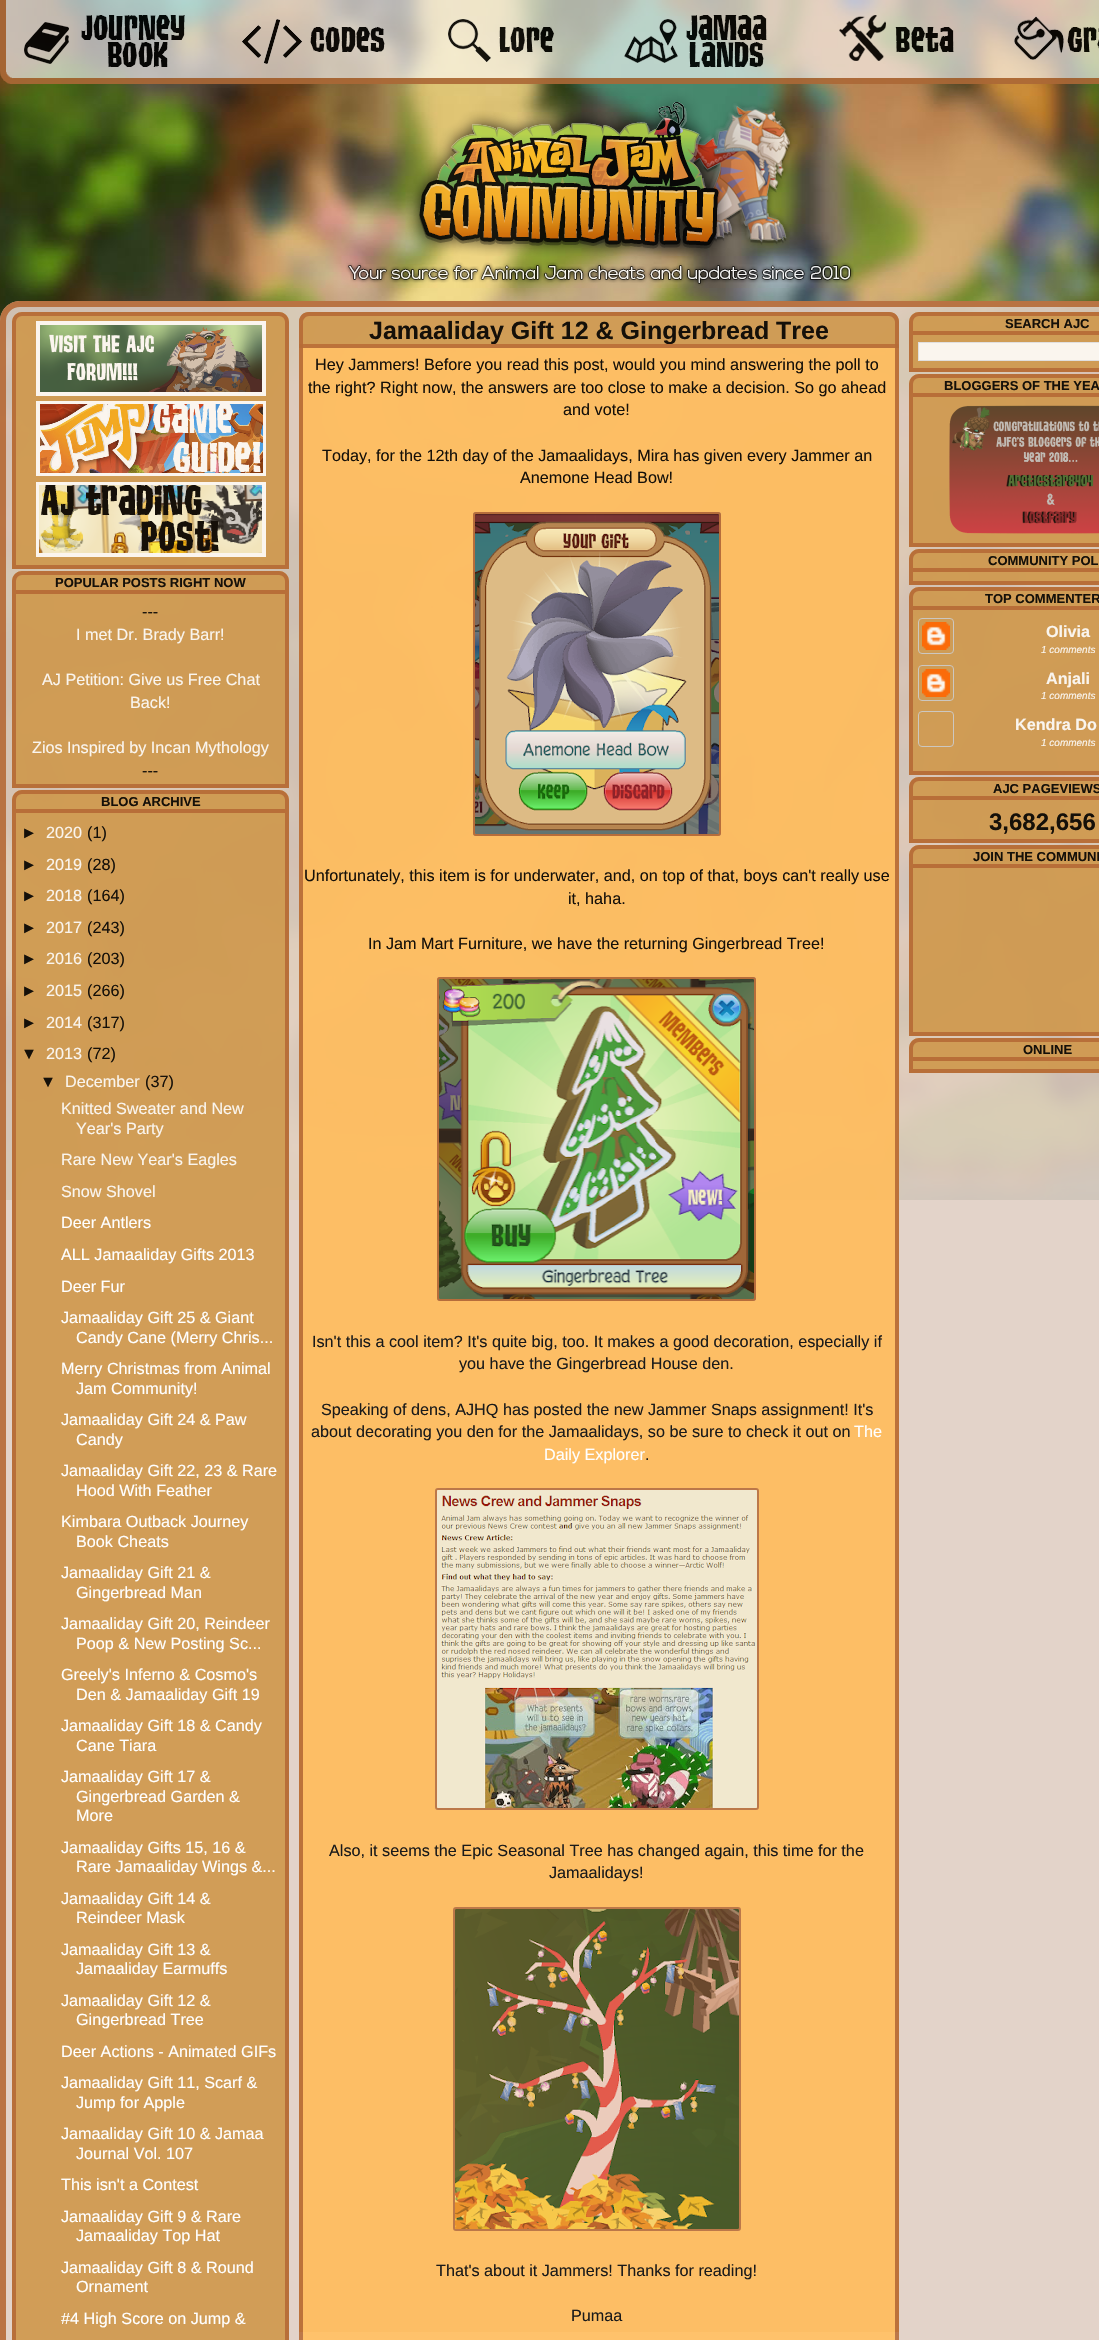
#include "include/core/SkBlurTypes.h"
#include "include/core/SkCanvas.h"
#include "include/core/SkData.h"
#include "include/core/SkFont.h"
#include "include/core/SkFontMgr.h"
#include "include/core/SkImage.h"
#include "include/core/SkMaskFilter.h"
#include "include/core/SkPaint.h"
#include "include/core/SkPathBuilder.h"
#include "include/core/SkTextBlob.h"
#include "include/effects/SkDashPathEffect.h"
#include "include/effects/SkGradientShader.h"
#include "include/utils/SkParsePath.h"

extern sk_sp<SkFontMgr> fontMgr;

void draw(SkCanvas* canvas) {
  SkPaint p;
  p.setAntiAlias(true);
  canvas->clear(SK_ColorWHITE);
  canvas->drawImageRect(SkImages::DeferredFromEncodedData(SkData::MakeFromFileName("images/1.png")), SkRect::MakeLTRB(0, 0, 1099, 1200), SkSamplingOptions());
  canvas->drawImageRect(SkImages::DeferredFromEncodedData(SkData::MakeFromFileName("images/2.png")), SkRect::MakeLTRB(0, 0, 1099, 286), SkSamplingOptions());
  p.setColor(SkColorSetARGB(230, 224, 206, 195));
  canvas->drawPath(SkPathBuilder().moveTo(20, 301).lineTo(1099, 301).cubicTo(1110, 301, 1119, 310, 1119, 321).lineTo(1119, 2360).lineTo(0, 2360).lineTo(0, 321).cubicTo(0, 310, 9, 301, 20, 301).close().detach(), p);
  p.setStyle(SkPaint::kStroke_Style);
  p.setStrokeWidth(6);
  p.setColor(SkColorSetARGB(230, 181, 105, 53));
  canvas->drawPath(SkPathBuilder().moveTo(20, 304).lineTo(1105, 304).cubicTo(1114.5f, 304, 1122, 311.5f, 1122, 321).lineTo(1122, 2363).lineTo(3, 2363).lineTo(3, 321).cubicTo(3, 311.5f, 10.5f, 304, 20, 304).close().detach(), p);
  p.setStyle(SkPaint::kFill_Style);
  p.setColor(SkColorSetARGB(230, 206, 151, 74));
  canvas->drawPath(SkPathBuilder().moveTo(22, 312).lineTo(279, 312).cubicTo(284.5f, 312, 289, 316.5f, 289, 322).lineTo(289, 569).lineTo(12, 569).lineTo(12, 322).cubicTo(12, 316.5f, 16.5f, 312, 22, 312).close().detach(), p);
  p.setStyle(SkPaint::kStroke_Style);
  p.setStrokeWidth(4);
  p.setColor(SkColorSetARGB(230, 181, 105, 53));
  canvas->drawPath(SkPathBuilder().moveTo(22, 314).lineTo(279, 314).cubicTo(283.5f, 314, 287, 317.5f, 287, 322).lineTo(287, 567).lineTo(14, 567).lineTo(14, 322).cubicTo(14, 317.5f, 17.5f, 314, 22, 314).close().detach(), p);
  canvas->drawImageRect(SkImages::DeferredFromEncodedData(SkData::MakeFromFileName("images/3.png")), SkRect::MakeLTRB(36, 321, 266, 396), SkSamplingOptions());
  canvas->drawImageRect(SkImages::DeferredFromEncodedData(SkData::MakeFromFileName("images/4.png")), SkRect::MakeLTRB(36, 401, 266, 476), SkSamplingOptions());
  canvas->drawImageRect(SkImages::DeferredFromEncodedData(SkData::MakeFromFileName("images/5.png")), SkRect::MakeLTRB(36, 482, 266, 557), SkSamplingOptions());
  p.setStyle(SkPaint::kFill_Style);
  p.setColor(SkColorSetARGB(230, 206, 151, 74));
  canvas->drawPath(SkPathBuilder().moveTo(22, 571).lineTo(279, 571).cubicTo(284.5f, 571, 289, 575.5f, 289, 581).lineTo(289, 788).lineTo(12, 788).lineTo(12, 581).cubicTo(12, 575.5f, 16.5f, 571, 22, 571).close().detach(), p);
  p.setStyle(SkPaint::kStroke_Style);
  p.setColor(SkColorSetARGB(230, 181, 105, 53));
  canvas->drawPath(SkPathBuilder().moveTo(22, 573).lineTo(279, 573).cubicTo(283.5f, 573, 287, 576.5f, 287, 581).lineTo(287, 786).lineTo(14, 786).lineTo(14, 581).cubicTo(14, 576.5f, 17.5f, 573, 22, 573).close().detach(), p);
  p.setStyle(SkPaint::kFill_Style);
  p.setColor(SkColorSetRGB(184, 110, 56));
  canvas->drawRect(SkRect::MakeLTRB(16, 590, 285, 594), p);
  p.setColor(SkColorSetARGB(230, 206, 151, 74));
  canvas->drawPath(SkPathBuilder().moveTo(22, 790).lineTo(279, 790).cubicTo(284.5f, 790, 289, 794.5f, 289, 800).lineTo(289, 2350).lineTo(12, 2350).lineTo(12, 800).cubicTo(12, 794.5f, 16.5f, 790, 22, 790).close().detach(), p);
  p.setStyle(SkPaint::kStroke_Style);
  p.setColor(SkColorSetARGB(230, 181, 105, 53));
  canvas->drawPath(SkPathBuilder().moveTo(22, 792).lineTo(279, 792).cubicTo(283.5f, 792, 287, 795.5f, 287, 800).lineTo(287, 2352).lineTo(14, 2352).lineTo(14, 800).cubicTo(14, 795.5f, 17.5f, 792, 22, 792).close().detach(), p);
  p.setStyle(SkPaint::kFill_Style);
  p.setColor(SkColorSetRGB(184, 110, 56));
  canvas->drawRect(SkRect::MakeLTRB(16, 809, 285, 813), p);
  p.setColor(SkColorSetARGB(230, 206, 151, 74));
  canvas->drawPath(SkPathBuilder().moveTo(309, 312).lineTo(889, 312).cubicTo(894.5f, 312, 899, 316.5f, 899, 322).lineTo(899, 345).lineTo(299, 345).lineTo(299, 322).cubicTo(299, 316.5f, 303.5f, 312, 309, 312).close().detach(), p);
  p.setColor(SkColorSetARGB(230, 181, 105, 53));
  canvas->drawPath(SkPathBuilder(SkPathFillType::kEvenOdd).moveTo(309, 312).lineTo(889, 312).cubicTo(895, 312, 899, 316, 899, 322).lineTo(899, 345).lineTo(299, 345).lineTo(299, 322).cubicTo(299, 316, 303, 312, 309, 312).close().moveTo(309, 316).lineTo(889, 316).cubicTo(892, 316, 895, 319, 895, 322).lineTo(895, 345).lineTo(303, 345).lineTo(303, 322).cubicTo(303, 319, 306, 316, 309, 316).close().detach(), p);
  p.setColor(SkColorSetRGB(255, 194, 107));
  canvas->drawRect(SkRect::MakeLTRB(299, 2332, 899, 2340), p);
  p.setColor(SkColorSetRGB(188, 120, 73));
  canvas->drawRect(SkRect::MakeLTRB(895, 2332, 899, 2340), p);
  canvas->drawRect(SkRect::MakeLTRB(299, 2332, 303, 2340), p);
  p.setColor(SkColorSetARGB(230, 206, 151, 74));
  canvas->drawPath(SkPathBuilder().moveTo(919, 312).lineTo(1099, 312).cubicTo(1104.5f, 312, 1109, 316.5f, 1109, 322).lineTo(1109, 372).lineTo(909, 372).lineTo(909, 322).cubicTo(909, 316.5f, 913.5f, 312, 919, 312).close().detach(), p);
  p.setStyle(SkPaint::kStroke_Style);
  p.setColor(SkColorSetARGB(230, 181, 105, 53));
  canvas->drawPath(SkPathBuilder().moveTo(919, 314).lineTo(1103, 314).cubicTo(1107.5f, 314, 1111, 317.5f, 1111, 322).lineTo(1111, 370).lineTo(911, 370).lineTo(911, 322).cubicTo(911, 317.5f, 914.5f, 314, 919, 314).close().detach(), p);
  p.setStyle(SkPaint::kFill_Style);
  p.setColor(SkColorSetRGB(184, 110, 56));
  canvas->drawRect(SkRect::MakeLTRB(913, 331, 1099, 335), p);
  p.setColor(SkColorSetRGB(250, 245, 238));
  canvas->drawRect(SkRect::MakeLTRB(918.5f, 342.5f, 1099.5f, 360.5f), p);
  p.setStyle(SkPaint::kStroke_Style);
  p.setStrokeWidth(1);
  p.setColor(SkColorSetRGB(224, 223, 223));
  canvas->drawRect(SkRect::MakeLTRB(918.5f, 342.5f, 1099.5f, 360.5f), p);
  p.setStyle(SkPaint::kFill_Style);
  p.setColor(SkColorSetARGB(230, 206, 151, 74));
  canvas->drawPath(SkPathBuilder().moveTo(919, 374).lineTo(1099, 374).cubicTo(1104.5f, 374, 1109, 378.5f, 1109, 384).lineTo(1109, 547).lineTo(909, 547).lineTo(909, 384).cubicTo(909, 378.5f, 913.5f, 374, 919, 374).close().detach(), p);
  p.setStyle(SkPaint::kStroke_Style);
  p.setStrokeWidth(4);
  p.setColor(SkColorSetARGB(230, 181, 105, 53));
  canvas->drawPath(SkPathBuilder().moveTo(919, 376).lineTo(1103, 376).cubicTo(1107.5f, 376, 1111, 379.5f, 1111, 384).lineTo(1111, 545).lineTo(911, 545).lineTo(911, 384).cubicTo(911, 379.5f, 914.5f, 376, 919, 376).close().detach(), p);
  p.setStyle(SkPaint::kFill_Style);
  p.setColor(SkColorSetRGB(184, 110, 56));
  canvas->drawRect(SkRect::MakeLTRB(913, 393, 1099, 397), p);
  canvas->drawImageRect(SkImages::DeferredFromEncodedData(SkData::MakeFromFileName("images/10.png")), SkRect::MakeLTRB(949, 405, 1099, 534), SkSamplingOptions());
  p.setColor(SkColorSetARGB(230, 206, 151, 74));
  canvas->drawPath(SkPathBuilder().moveTo(919, 549).lineTo(1099, 549).cubicTo(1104.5f, 549, 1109, 553.5f, 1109, 559).lineTo(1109, 585).lineTo(909, 585).lineTo(909, 559).cubicTo(909, 553.5f, 913.5f, 549, 919, 549).close().detach(), p);
  p.setStyle(SkPaint::kStroke_Style);
  p.setColor(SkColorSetARGB(230, 181, 105, 53));
  canvas->drawPath(SkPathBuilder().moveTo(919, 551).lineTo(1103, 551).cubicTo(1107.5f, 551, 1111, 554.5f, 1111, 559).lineTo(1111, 583).lineTo(911, 583).lineTo(911, 559).cubicTo(911, 554.5f, 914.5f, 551, 919, 551).close().detach(), p);
  p.setStyle(SkPaint::kFill_Style);
  p.setColor(SkColorSetRGB(184, 110, 56));
  canvas->drawRect(SkRect::MakeLTRB(913, 568, 1099, 572), p);
  p.setColor(SkColorSetARGB(230, 206, 151, 74));
  canvas->drawPath(SkPathBuilder().moveTo(919, 587).lineTo(1099, 587).cubicTo(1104.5f, 587, 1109, 591.5f, 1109, 597).lineTo(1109, 775).lineTo(909, 775).lineTo(909, 597).cubicTo(909, 591.5f, 913.5f, 587, 919, 587).close().detach(), p);
  p.setStyle(SkPaint::kStroke_Style);
  p.setColor(SkColorSetARGB(230, 181, 105, 53));
  canvas->drawPath(SkPathBuilder().moveTo(919, 589).lineTo(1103, 589).cubicTo(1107.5f, 589, 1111, 592.5f, 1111, 597).lineTo(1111, 773).lineTo(911, 773).lineTo(911, 597).cubicTo(911, 592.5f, 914.5f, 589, 919, 589).close().detach(), p);
  p.setStyle(SkPaint::kFill_Style);
  p.setColor(SkColorSetRGB(184, 110, 56));
  canvas->drawRect(SkRect::MakeLTRB(913, 606, 1099, 610), p);
  p.setStyle(SkPaint::kStroke_Style);
  p.setStrokeWidth(1);
  p.setColor(SkColorSetRGB(204, 199, 192));
  canvas->drawRoundRect(SkRect::MakeLTRB(918.5f, 618.5f, 953.5f, 653.5f), 3.5f, 3.5f, p);
  canvas->drawImageRect(SkImages::DeferredFromEncodedData(SkData::MakeFromFileName("images/11.png")), SkRect::MakeLTRB(922, 622, 950, 650), SkSamplingOptions());
  canvas->drawRoundRect(SkRect::MakeLTRB(918.5f, 665.5f, 953.5f, 700.5f), 3.5f, 3.5f, p);
  canvas->drawImageRect(SkImages::DeferredFromEncodedData(SkData::MakeFromFileName("images/12.png")), SkRect::MakeLTRB(922, 669, 950, 697), SkSamplingOptions());
  canvas->drawRoundRect(SkRect::MakeLTRB(918.5f, 711.5f, 953.5f, 746.5f), 3.5f, 3.5f, p);
  p.setStyle(SkPaint::kFill_Style);
  p.setColor(SkColorSetARGB(230, 206, 151, 74));
  canvas->drawPath(SkPathBuilder().moveTo(919, 777).lineTo(1099, 777).cubicTo(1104.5f, 777, 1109, 781.5f, 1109, 787).lineTo(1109, 843).lineTo(909, 843).lineTo(909, 787).cubicTo(909, 781.5f, 913.5f, 777, 919, 777).close().detach(), p);
  p.setStyle(SkPaint::kStroke_Style);
  p.setStrokeWidth(4);
  p.setColor(SkColorSetARGB(230, 181, 105, 53));
  canvas->drawPath(SkPathBuilder().moveTo(919, 779).lineTo(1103, 779).cubicTo(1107.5f, 779, 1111, 782.5f, 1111, 787).lineTo(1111, 841).lineTo(911, 841).lineTo(911, 787).cubicTo(911, 782.5f, 914.5f, 779, 919, 779).close().detach(), p);
  p.setStyle(SkPaint::kFill_Style);
  p.setColor(SkColorSetRGB(184, 110, 56));
  canvas->drawRect(SkRect::MakeLTRB(913, 796, 1099, 800), p);
  p.setColor(SkColorSetARGB(230, 206, 151, 74));
  canvas->drawPath(SkPathBuilder().moveTo(919, 845).lineTo(1099, 845).cubicTo(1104.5f, 845, 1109, 849.5f, 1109, 855).lineTo(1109, 1036).lineTo(909, 1036).lineTo(909, 855).cubicTo(909, 849.5f, 913.5f, 845, 919, 845).close().detach(), p);
  p.setStyle(SkPaint::kStroke_Style);
  p.setColor(SkColorSetARGB(230, 181, 105, 53));
  canvas->drawPath(SkPathBuilder().moveTo(919, 847).lineTo(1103, 847).cubicTo(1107.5f, 847, 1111, 850.5f, 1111, 855).lineTo(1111, 1034).lineTo(911, 1034).lineTo(911, 855).cubicTo(911, 850.5f, 914.5f, 847, 919, 847).close().detach(), p);
  p.setStyle(SkPaint::kFill_Style);
  p.setColor(SkColorSetRGB(184, 110, 56));
  canvas->drawRect(SkRect::MakeLTRB(913, 864, 1099, 868), p);
  p.setColor(SkColorSetARGB(230, 206, 151, 74));
  canvas->drawPath(SkPathBuilder().moveTo(919, 1038).lineTo(1099, 1038).cubicTo(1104.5f, 1038, 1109, 1042.5f, 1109, 1048).lineTo(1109, 1073).lineTo(909, 1073).lineTo(909, 1048).cubicTo(909, 1042.5f, 913.5f, 1038, 919, 1038).close().detach(), p);
  p.setStyle(SkPaint::kStroke_Style);
  p.setColor(SkColorSetARGB(230, 181, 105, 53));
  canvas->drawPath(SkPathBuilder().moveTo(919, 1040).lineTo(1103, 1040).cubicTo(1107.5f, 1040, 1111, 1043.5f, 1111, 1048).lineTo(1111, 1071).lineTo(911, 1071).lineTo(911, 1048).cubicTo(911, 1043.5f, 914.5f, 1040, 919, 1040).close().detach(), p);
  p.setStyle(SkPaint::kFill_Style);
  p.setColor(SkColorSetRGB(184, 110, 56));
  canvas->drawRect(SkRect::MakeLTRB(913, 1057, 1099, 1061), p);
  SkFont font1(fontMgr->matchFamilyStyle("Liberation Sans", SkFontStyle::Bold()), 13);
  font1.setSubpixel(true);
  p.setColor(SkColorSetRGB(21, 16, 9));
  canvas->drawString("POPULAR POSTS RIGHT NOW", 55, 587, font1, p);
  SkFont font2(fontMgr->matchFamilyStyle("Liberation Sans", SkFontStyle::Normal()), 16.2f);
  font2.setSubpixel(true);
  canvas->drawString("---", 142, 617, font2, p);
  p.setColor(SkColorSetRGB(250, 245, 238));
  canvas->drawString("I met Dr. Brady Barr!", 76, 640, font2, p);
  canvas->drawString("AJ Petition: Give us Free Chat", 42, 685, font2, p);
  canvas->drawString("Back!", 130, 708, font2, p);
  canvas->drawString("Zios Inspired by Incan Mythology", 32, 753, font2, p);
  p.setColor(SkColorSetRGB(21, 16, 9));
  canvas->drawString("---", 142, 776, font2, p);
  canvas->drawString("BLOG ARCHIVE", 101, 806, font1, p);
  canvas->drawString("►", 21, 838, font2, p);
  p.setColor(SkColorSetRGB(250, 245, 238));
  canvas->drawString("2020", 46, 838, font2, p);
  p.setColor(SkColorSetRGB(21, 16, 9));
  canvas->drawString("(1)", 87, 838, font2, p);
  canvas->drawString("►", 21, 870, font2, p);
  p.setColor(SkColorSetRGB(250, 245, 238));
  canvas->drawString("2019", 46, 870, font2, p);
  p.setColor(SkColorSetRGB(21, 16, 9));
  canvas->drawString("(28)", 87, 870, font2, p);
  canvas->drawString("►", 21, 901, font2, p);
  p.setColor(SkColorSetRGB(250, 245, 238));
  canvas->drawString("2018", 46, 901, font2, p);
  p.setColor(SkColorSetRGB(21, 16, 9));
  canvas->drawString("(164)", 87, 901, font2, p);
  canvas->drawString("►", 21, 933, font2, p);
  p.setColor(SkColorSetRGB(250, 245, 238));
  canvas->drawString("2017", 46, 933, font2, p);
  p.setColor(SkColorSetRGB(21, 16, 9));
  canvas->drawString("(243)", 87, 933, font2, p);
  canvas->drawString("►", 21, 964, font2, p);
  p.setColor(SkColorSetRGB(250, 245, 238));
  canvas->drawString("2016", 46, 964, font2, p);
  p.setColor(SkColorSetRGB(21, 16, 9));
  canvas->drawString("(203)", 87, 964, font2, p);
  canvas->drawString("►", 21, 996, font2, p);
  p.setColor(SkColorSetRGB(250, 245, 238));
  canvas->drawString("2015", 46, 996, font2, p);
  p.setColor(SkColorSetRGB(21, 16, 9));
  canvas->drawString("(266)", 87, 996, font2, p);
  canvas->drawString("►", 21, 1028, font2, p);
  p.setColor(SkColorSetRGB(250, 245, 238));
  canvas->drawString("2014", 46, 1028, font2, p);
  p.setColor(SkColorSetRGB(21, 16, 9));
  canvas->drawString("(317)", 87, 1028, font2, p);
  canvas->drawString("▼", 21, 1059, font2, p);
  p.setColor(SkColorSetRGB(250, 245, 238));
  canvas->drawString("2013", 46, 1059, font2, p);
  p.setColor(SkColorSetRGB(21, 16, 9));
  canvas->drawString("(72)", 87, 1059, font2, p);
  canvas->drawString("▼", 40, 1087, font2, p);
  p.setColor(SkColorSetRGB(250, 245, 238));
  canvas->drawString("December", 65, 1087, font2, p);
  p.setColor(SkColorSetRGB(21, 16, 9));
  canvas->drawString("(37)", 145, 1087, font2, p);
  p.setColor(SkColorSetRGB(250, 245, 238));
  canvas->drawString("Knitted Sweater and New", 61, 1114, font2, p);
  canvas->drawString("Year's Party", 76, 1134, font2, p);
  canvas->drawString("Rare New Year's Eagles", 61, 1165, font2, p);
  canvas->drawString("Snow Shovel", 61, 1197, font2, p);
  p.setColor(SK_ColorWHITE);
  canvas->drawString("Deer Antlers", 61, 1228, font2, p);
  canvas->drawString("ALL Jamaaliday Gifts 2013", 61, 1260, font2, p);
  canvas->drawString("Deer Fur", 61, 1292, font2, p);
  canvas->drawString("Jamaaliday Gift 25 & Giant", 61, 1323, font2, p);
  canvas->drawString("Candy Cane (Merry Chris...", 76, 1343, font2, p);
  canvas->drawString("Merry Christmas from Animal", 61, 1374, font2, p);
  canvas->drawString("Jam Community!", 76, 1394, font2, p);
  canvas->drawString("Jamaaliday Gift 24 & Paw", 61, 1425, font2, p);
  canvas->drawString("Candy", 76, 1445, font2, p);
  canvas->drawString("Jamaaliday Gift 22, 23 & Rare", 61, 1476, font2, p);
  canvas->drawString("Hood With Feather", 76, 1496, font2, p);
  canvas->drawString("Kimbara Outback Journey", 61, 1527, font2, p);
  canvas->drawString("Book Cheats", 76, 1547, font2, p);
  canvas->drawString("Jamaaliday Gift 21 &", 61, 1578, font2, p);
  canvas->drawString("Gingerbread Man", 76, 1598, font2, p);
  canvas->drawString("Jamaaliday Gift 20, Reindeer", 61, 1629, font2, p);
  canvas->drawString("Poop & New Posting Sc...", 76, 1649, font2, p);
  canvas->drawString("Greely's Inferno & Cosmo's", 61, 1680, font2, p);
  canvas->drawString("Den & Jamaaliday Gift 19", 76, 1700, font2, p);
  canvas->drawString("Jamaaliday Gift 18 & Candy", 61, 1731, font2, p);
  canvas->drawString("Cane Tiara", 76, 1751, font2, p);
  canvas->drawString("Jamaaliday Gift 17 &", 61, 1782, font2, p);
  canvas->drawString("Gingerbread Garden &", 76, 1802, font2, p);
  canvas->drawString("More", 76, 1821, font2, p);
  canvas->drawString("Jamaaliday Gifts 15, 16 &", 61, 1853, font2, p);
  canvas->drawString("Rare Jamaaliday Wings &...", 76, 1872, font2, p);
  canvas->drawString("Jamaaliday Gift 14 &", 61, 1904, font2, p);
  canvas->drawString("Reindeer Mask", 76, 1923, font2, p);
  canvas->drawString("Jamaaliday Gift 13 &", 61, 1955, font2, p);
  canvas->drawString("Jamaaliday Earmuffs", 76, 1974, font2, p);
  canvas->drawString("Jamaaliday Gift 12 &", 61, 2006, font2, p);
  canvas->drawString("Gingerbread Tree", 76, 2025, font2, p);
  canvas->drawString("Deer Actions - Animated GIFs", 61, 2057, font2, p);
  canvas->drawString("Jamaaliday Gift 11, Scarf &", 61, 2088, font2, p);
  canvas->drawString("Jump for Apple", 76, 2108, font2, p);
  canvas->drawString("Jamaaliday Gift 10 & Jamaa", 61, 2139, font2, p);
  canvas->drawString("Journal Vol. 107", 76, 2159, font2, p);
  canvas->drawString("This isn't a Contest", 61, 2190, font2, p);
  canvas->drawString("Jamaaliday Gift 9 & Rare", 61, 2222, font2, p);
  canvas->drawString("Jamaaliday Top Hat", 76, 2241, font2, p);
  canvas->drawString("Jamaaliday Gift 8 & Round", 61, 2273, font2, p);
  canvas->drawString("Ornament", 76, 2292, font2, p);
  canvas->drawString("#4 High Score on Jump &", 61, 2324, font2, p);
  SkFont font3(fontMgr->matchFamilyStyle("Liberation Sans", SkFontStyle::Bold()), 25);
  font3.setSubpixel(true);
  p.setColor(SkColorSetRGB(21, 16, 9));
  canvas->drawString("Jamaaliday Gift 12 & Gingerbread Tree", 369, 339, font3, p);
  p.setColor(SkColorSetARGB(230, 255, 187, 90));
  canvas->drawRect(SkRect::MakeLTRB(299, 344, 899, 2332), p);
  p.setColor(SkColorSetARGB(230, 181, 105, 53));
  canvas->drawRect(SkRect::MakeLTRB(299, 344, 899, 348), p);
  canvas->drawRect(SkRect::MakeLTRB(895, 344, 899, 2332), p);
  canvas->drawRect(SkRect::MakeLTRB(299, 344, 303, 2332), p);
  p.setColor(SkColorSetRGB(21, 16, 9));
  canvas->drawString("Hey Jammers! Before you read this post, would you mind answering the poll to", 315, 370, font2, p);
  canvas->drawString("the right? Right now, the answers are too close to make a decision. So go ahead", 308, 393, font2, p);
  canvas->drawString("and vote!", 563, 415, font2, p);
  canvas->drawString("Today, for the 12th day of the Jamaalidays, Mira has given every Jammer an", 322, 461, font2, p);
  canvas->drawString("Anemone Head Bow!", 520, 483, font2, p);
  p.setColor(SkColorSetRGB(185, 139, 104));
  canvas->drawRoundRect(SkRect::MakeLTRB(473, 512, 721, 836), 3, 3, p);
  p.setStyle(SkPaint::kStroke_Style);
  p.setStrokeWidth(2);
  p.setColor(SkColorSetARGB(230, 181, 105, 53));
  canvas->drawRoundRect(SkRect::MakeLTRB(474, 513, 720, 835), 2, 2, p);
  canvas->drawImageRect(SkImages::DeferredFromEncodedData(SkData::MakeFromFileName("images/6.png")), SkRect::MakeLTRB(475, 514, 719, 834), SkSamplingOptions());
  p.setStyle(SkPaint::kFill_Style);
  p.setColor(SkColorSetRGB(21, 16, 9));
  canvas->drawString("Unfortunately, this item is for underwater, and, on top of that, boys can't really use", 304, 881, font2, p);
  canvas->drawString("it, haha.", 568, 904, font2, p);
  canvas->drawString("In Jam Mart Furniture, we have the returning Gingerbread Tree!", 368, 949, font2, p);
  p.setColor(SkColorSetRGB(185, 140, 105));
  canvas->drawRoundRect(SkRect::MakeLTRB(437, 977, 756, 1301), 3, 3, p);
  p.setStyle(SkPaint::kStroke_Style);
  p.setColor(SkColorSetARGB(230, 181, 105, 53));
  canvas->drawRoundRect(SkRect::MakeLTRB(438, 978, 755, 1300), 2, 2, p);
  canvas->drawImageRect(SkImages::DeferredFromEncodedData(SkData::MakeFromFileName("images/7.png")), SkRect::MakeLTRB(439, 979, 754, 1299), SkSamplingOptions());
  p.setStyle(SkPaint::kFill_Style);
  p.setColor(SkColorSetRGB(26, 26, 26));
  canvas->drawString("Isn't this a cool item? It's quite big, too. It makes a good decoration, especially if", 312, 1347, font2, p);
  canvas->drawString("you have the Gingerbread House den.", 459, 1369, font2, p);
  canvas->drawString("Speaking of dens, AJHQ has posted the new Jammer Snaps assignment! It's", 321, 1415, font2, p);
  canvas->drawString("about decorating you den for the Jamaalidays, so be sure to check it out on", 311, 1437, font2, p);
  p.setColor(SK_ColorWHITE);
  canvas->drawString("The", 854, 1437, font2, p);
  canvas->drawString("Daily Explorer", 544, 1460, font2, p);
  p.setColor(SkColorSetRGB(26, 26, 26));
  canvas->drawString(".", 645, 1460, font2, p);
  p.setStyle(SkPaint::kStroke_Style);
  p.setColor(SkColorSetRGB(188, 120, 73));
  canvas->drawRoundRect(SkRect::MakeLTRB(436, 1489, 758, 1809), 2, 2, p);
  canvas->drawImageRect(SkImages::DeferredFromEncodedData(SkData::MakeFromFileName("images/8.png")), SkRect::MakeLTRB(437, 1490, 757, 1808), SkSamplingOptions());
  p.setStyle(SkPaint::kFill_Style);
  p.setColor(SkColorSetRGB(26, 26, 26));
  canvas->drawString("Also, it seems the Epic Seasonal Tree has changed again, this time for the", 329, 1856, font2, p);
  canvas->drawString("Jamaalidays!", 549, 1878, font2, p);
  p.setStyle(SkPaint::kStroke_Style);
  p.setColor(SkColorSetRGB(188, 120, 73));
  canvas->drawRoundRect(SkRect::MakeLTRB(454, 1908, 740, 2230), 2, 2, p);
  canvas->drawImageRect(SkImages::DeferredFromEncodedData(SkData::MakeFromFileName("images/9.png")), SkRect::MakeLTRB(455, 1909, 739, 2229), SkSamplingOptions());
  p.setStyle(SkPaint::kFill_Style);
  p.setColor(SkColorSetRGB(26, 26, 26));
  canvas->drawString("That's about it Jammers! Thanks for reading!", 436, 2276, font2, p);
  canvas->drawString("Pumaa", 571, 2321, font2, p);
  p.setColor(SkColorSetRGB(21, 16, 9));
  canvas->drawString("SEARCH AJC", 1005, 328, font1, p);
  canvas->drawString("BLOGGERS OF THE YEA", 944, 390, font1, p);
  canvas->drawString("COMMUNITY POL", 988, 565, font1, p);
  canvas->drawString("TOP COMMENTER", 985, 603, font1, p);
  SkFont font4(fontMgr->matchFamilyStyle("Liberation Sans", SkFontStyle::Bold()), 16.2f);
  font4.setSubpixel(true);
  p.setColor(SkColorSetRGB(250, 245, 238));
  canvas->drawString("Olivia", 1046, 637, font4, p);
  SkFont font5(fontMgr->matchFamilyStyle("Liberation Sans", SkFontStyle::Italic()), 10);
  font5.setSubpixel(true);
  canvas->drawString("1 comments", 1041, 653, font5, p);
  canvas->drawString("Anjali", 1046, 684, font4, p);
  canvas->drawString("1 comments", 1041, 699, font5, p);
  canvas->drawString("Kendra Do", 1015, 730, font4, p);
  canvas->drawString("1 comments", 1041, 746, font5, p);
  p.setColor(SkColorSetRGB(21, 16, 9));
  canvas->drawString("AJC PAGEVIEWS", 993, 793, font1, p);
  SkFont font6(fontMgr->matchFamilyStyle("Liberation Sans", SkFontStyle::Bold()), 24);
  font6.setSubpixel(true);
  canvas->drawString("3,682,656", 989, 830, font6, p);
  canvas->drawString("JOIN THE COMMUNI", 973, 861, font1, p);
  canvas->drawString("ONLINE", 1023, 1054, font1, p);
}
